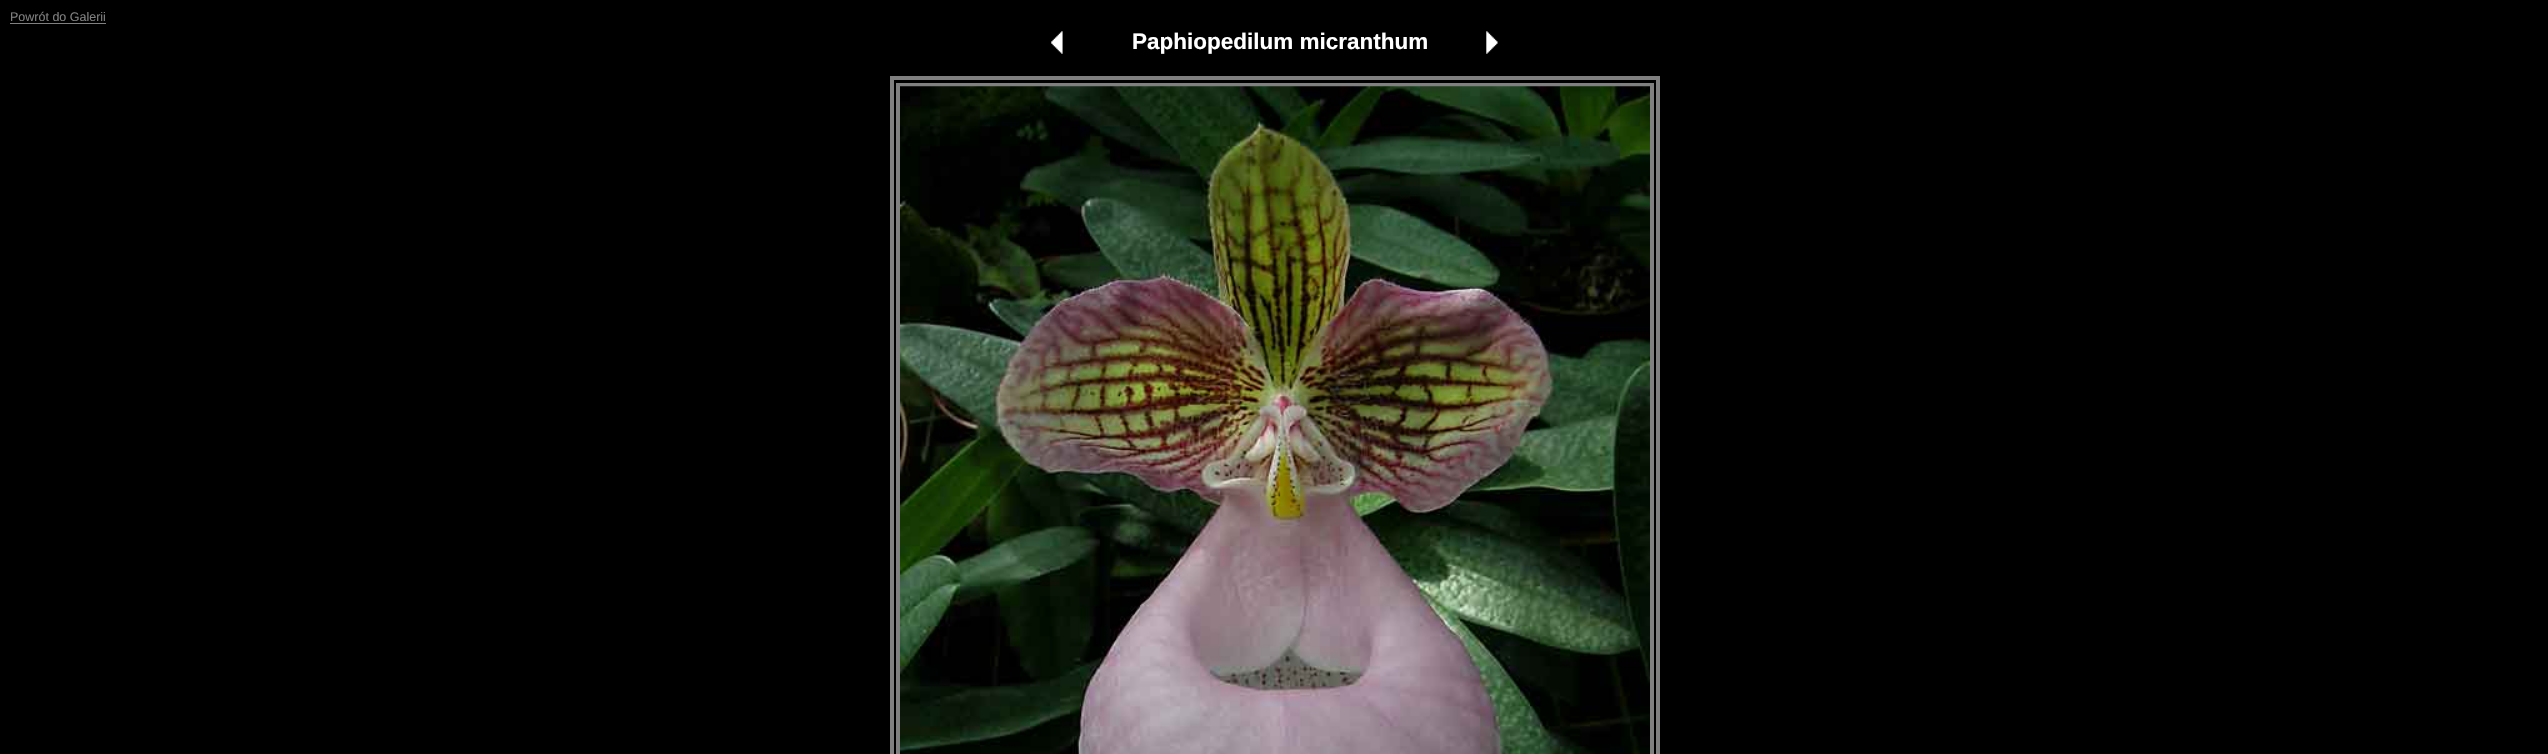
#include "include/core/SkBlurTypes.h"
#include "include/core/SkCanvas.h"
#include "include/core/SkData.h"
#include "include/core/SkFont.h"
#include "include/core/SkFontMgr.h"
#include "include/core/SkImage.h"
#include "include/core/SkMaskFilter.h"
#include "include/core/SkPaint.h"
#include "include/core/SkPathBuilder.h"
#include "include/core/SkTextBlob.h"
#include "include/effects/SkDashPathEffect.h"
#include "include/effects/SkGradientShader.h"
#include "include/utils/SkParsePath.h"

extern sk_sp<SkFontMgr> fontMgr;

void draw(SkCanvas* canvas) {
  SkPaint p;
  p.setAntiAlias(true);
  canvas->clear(SK_ColorBLACK);
  p.setColor(SkColorSetRGB(128, 128, 128));
  canvas->drawRect(SkRect::MakeLTRB(10, 23, 106, 24), p);
  canvas->drawImageRect(SkImages::DeferredFromEncodedData(SkData::MakeFromFileName("images/1.png")), SkRect::MakeLTRB(1051, 31, 1063, 54), SkSamplingOptions());
  canvas->drawImageRect(SkImages::DeferredFromEncodedData(SkData::MakeFromFileName("images/2.png")), SkRect::MakeLTRB(1486, 31, 1498, 54), SkSamplingOptions());
  p.setStyle(SkPaint::kStroke_Style);
  p.setStrokeWidth(4);
  canvas->drawRect(SkRect::MakeLTRB(892, 78, 1658, 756), p);
  canvas->drawRect(SkRect::MakeLTRB(898, 85, 1652, 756), p);
  canvas->drawImageRect(SkImages::DeferredFromEncodedData(SkData::MakeFromFileName("images/3.png")), SkRect::MakeLTRB(900, 86, 1650, 754), SkSamplingOptions());
  SkFont font1(fontMgr->matchFamilyStyle("Liberation Sans", SkFontStyle::Normal()), 12.5f);
  font1.setSubpixel(true);
  p.setStyle(SkPaint::kFill_Style);
  canvas->drawString("Powrót do Galerii", 10, 21, font1, p);
  SkFont font2(fontMgr->matchFamilyStyle("Liberation Sans", SkFontStyle::Bold()), 22.5f);
  font2.setSubpixel(true);
  p.setColor(SK_ColorWHITE);
  canvas->drawString("Paphiopedilum micranthum", 1132, 49, font2, p);
}
